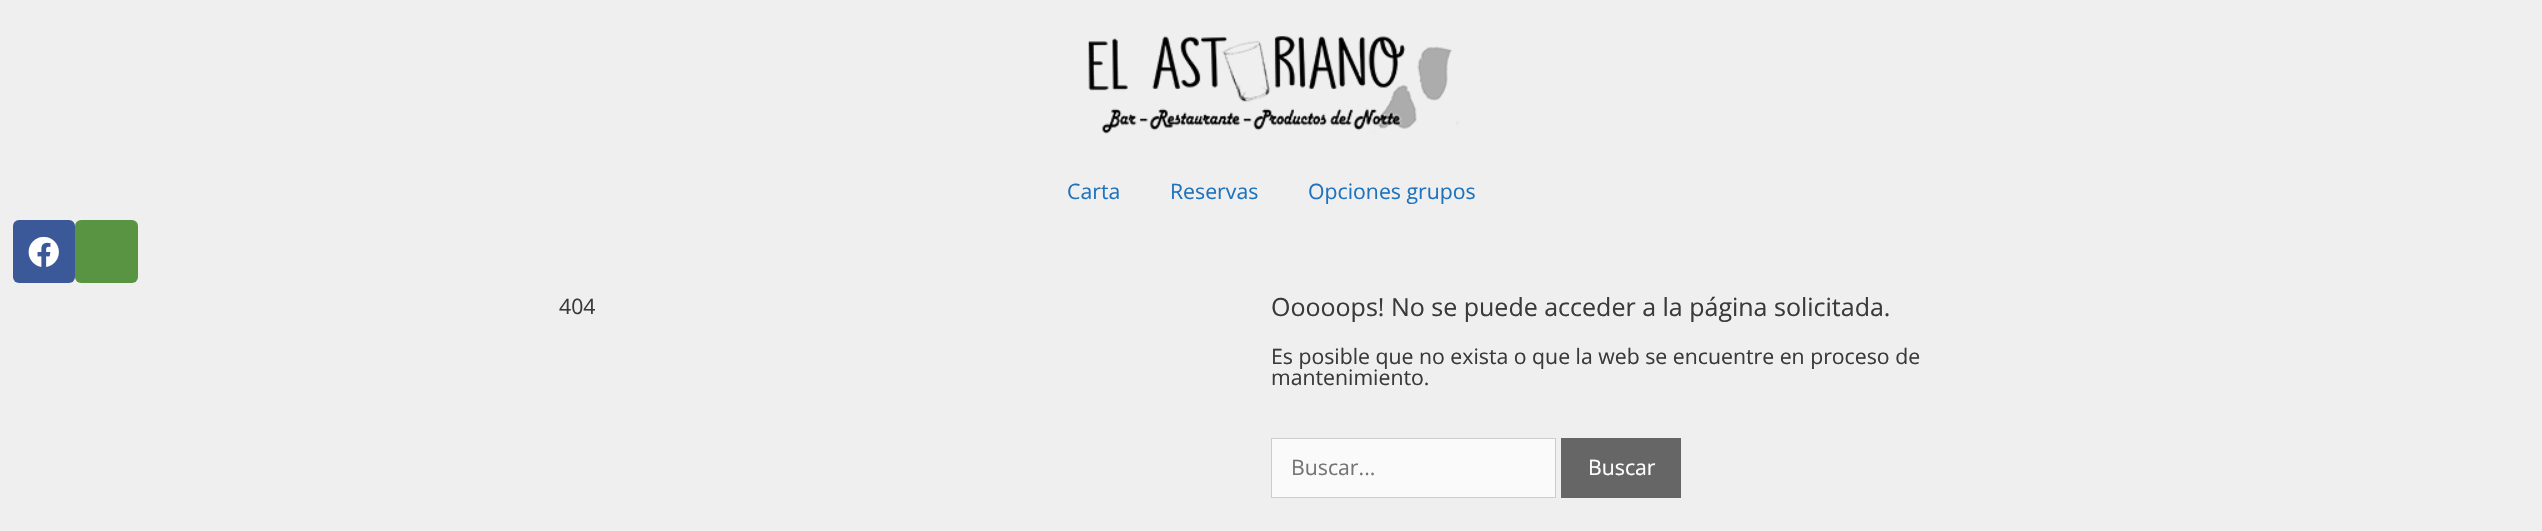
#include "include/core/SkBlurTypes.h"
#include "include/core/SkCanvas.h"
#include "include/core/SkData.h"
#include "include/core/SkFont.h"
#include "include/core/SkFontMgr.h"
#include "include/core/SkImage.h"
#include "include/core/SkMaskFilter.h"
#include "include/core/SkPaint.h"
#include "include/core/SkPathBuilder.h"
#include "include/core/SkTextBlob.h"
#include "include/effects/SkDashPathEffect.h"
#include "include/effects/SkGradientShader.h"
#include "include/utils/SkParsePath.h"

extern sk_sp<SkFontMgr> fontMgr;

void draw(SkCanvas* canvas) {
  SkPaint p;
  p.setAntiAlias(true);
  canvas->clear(SkColorSetRGB(239, 239, 239));
  canvas->drawImageRect(SkImages::DeferredFromEncodedData(SkData::MakeFromFileName("images/1.png")), SkRect::MakeLTRB(1088, 36, 1459, 134), SkSamplingOptions());
  p.setColor(SkColorSetRGB(59, 89, 152));
  canvas->drawRoundRect(SkRect::MakeLTRB(13, 220, 75, 283), 6, 6, p);
  canvas->drawImageRect(SkImages::DeferredFromEncodedData(SkData::MakeFromFileName("images/2.png")), SkRect::MakeLTRB(28, 236, 59, 267), SkSamplingOptions());
  p.setColor(SkColorSetRGB(88, 148, 66));
  canvas->drawRoundRect(SkRect::MakeLTRB(75, 220, 138, 283), 6, 6, p);
  p.setColor(SkColorSetRGB(250, 250, 250));
  canvas->drawRect(SkRect::MakeLTRB(1271.5f, 438.5f, 1555.5f, 497.5f), p);
  p.setStyle(SkPaint::kStroke_Style);
  p.setStrokeWidth(1);
  p.setColor(SkColorSetRGB(204, 204, 204));
  canvas->drawRect(SkRect::MakeLTRB(1271.5f, 438.5f, 1555.5f, 497.5f), p);
  p.setStyle(SkPaint::kFill_Style);
  p.setColor(SkColorSetRGB(102, 102, 102));
  canvas->drawRect(SkRect::MakeLTRB(1561, 438, 1681, 498), p);
  SkFont font1(fontMgr->matchFamilyStyle("Open Sans", SkFontStyle::Normal()), 21.25f);
  font1.setSubpixel(true);
  p.setColor(SkColorSetRGB(30, 115, 190));
  canvas->drawString("Carta", 1067, 199, font1, p);
  canvas->drawString("Reservas", 1170, 199, font1, p);
  canvas->drawString("Opciones grupos", 1308, 199, font1, p);
  p.setColor(SkColorSetRGB(58, 58, 58));
  canvas->drawString("404", 559, 314, font1, p);
  SkFont font2(fontMgr->matchFamilyStyle("Open Sans", SkFontStyle::Normal()), 25);
  font2.setSubpixel(true);
  canvas->drawString("Ooooops! No se puede acceder a la página solicitada.", 1271, 316, font2, p);
  canvas->drawString("Es posible que no exista o que la web se encuentre en proceso de", 1271, 364, font1, p);
  canvas->drawString("mantenimiento.", 1271, 385, font1, p);
  p.setColor(SkColorSetRGB(117, 117, 117));
  canvas->drawString("Buscar...", 1291, 475, font1, p);
  p.setColor(SK_ColorWHITE);
  canvas->drawString("Buscar", 1588, 475, font1, p);
}
